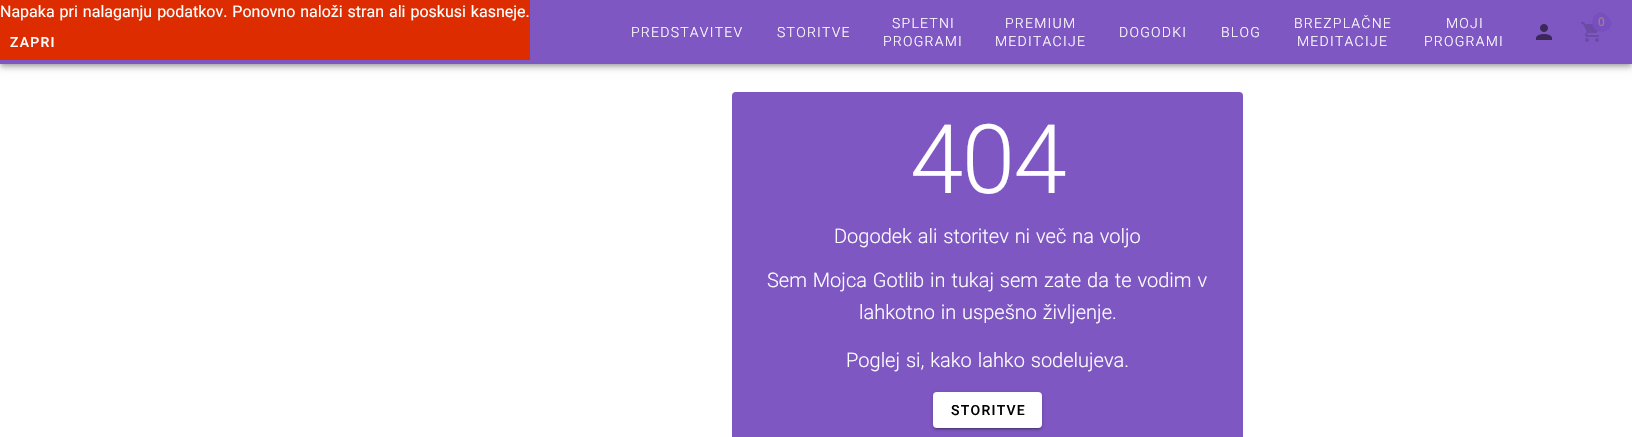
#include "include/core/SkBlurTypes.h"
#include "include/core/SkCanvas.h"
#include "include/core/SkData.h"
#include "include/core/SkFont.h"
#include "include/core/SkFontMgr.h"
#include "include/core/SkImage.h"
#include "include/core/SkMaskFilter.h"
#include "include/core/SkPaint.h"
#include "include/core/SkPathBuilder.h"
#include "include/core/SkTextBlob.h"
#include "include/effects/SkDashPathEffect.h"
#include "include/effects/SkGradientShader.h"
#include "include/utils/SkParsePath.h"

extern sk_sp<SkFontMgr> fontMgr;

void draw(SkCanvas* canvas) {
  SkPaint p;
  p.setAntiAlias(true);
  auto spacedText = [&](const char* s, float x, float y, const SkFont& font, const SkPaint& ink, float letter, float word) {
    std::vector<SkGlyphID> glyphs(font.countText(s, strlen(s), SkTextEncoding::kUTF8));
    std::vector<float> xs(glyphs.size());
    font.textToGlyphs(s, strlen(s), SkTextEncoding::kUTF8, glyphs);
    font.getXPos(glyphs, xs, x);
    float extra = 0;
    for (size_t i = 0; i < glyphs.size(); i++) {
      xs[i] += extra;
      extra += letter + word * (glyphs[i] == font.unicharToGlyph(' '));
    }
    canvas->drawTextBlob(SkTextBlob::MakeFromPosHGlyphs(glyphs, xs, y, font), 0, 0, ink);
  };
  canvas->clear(SK_ColorWHITE);
  p.setColor(SkColorSetARGB(31, 0, 0, 0));
  p.setMaskFilter(SkMaskFilter::MakeBlur(kNormal_SkBlurStyle, 5));
  canvas->drawRect(SkRect::MakeLTRB(0, 1, 1632, 65), p);
  p.setMaskFilter(nullptr);
  p.setColor(SkColorSetARGB(36, 0, 0, 0));
  p.setMaskFilter(SkMaskFilter::MakeBlur(kNormal_SkBlurStyle, 2.5f));
  canvas->drawRect(SkRect::MakeLTRB(0, 4, 1632, 68), p);
  p.setMaskFilter(nullptr);
  p.setColor(SkColorSetARGB(51, 0, 0, 0));
  p.setMaskFilter(SkMaskFilter::MakeBlur(kNormal_SkBlurStyle, 2));
  canvas->drawRect(SkRect::MakeLTRB(1, 3, 1631, 65), p);
  p.setMaskFilter(nullptr);
  p.setColor(SkColorSetRGB(126, 87, 194));
  canvas->drawRect(SkRect::MakeLTRB(0, 0, 1632, 64), p);
  p.setColor(SkColorSetRGB(221, 44, 0));
  canvas->drawRect(SkRect::MakeLTRB(0, 0, 530, 60), p);
  canvas->drawImageRect(SkImages::DeferredFromEncodedData(SkData::MakeFromFileName("images/1.png")), SkRect::MakeLTRB(1536, 24, 1552, 40), SkSamplingOptions());
  canvas->drawImageRect(SkImages::DeferredFromEncodedData(SkData::MakeFromFileName("images/2.png")), SkRect::MakeLTRB(1581, 22, 1599, 42), SkSamplingOptions());
  p.setColor(SkColorSetRGB(120, 79, 191));
  canvas->drawCircle(1602, 22, 10, p);
  p.setColor(SkColorSetRGB(126, 87, 194));
  canvas->drawRoundRect(SkRect::MakeLTRB(732, 92, 1243, 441), 4, 4, p);
  p.setColor(SkColorSetARGB(31, 0, 0, 0));
  p.setMaskFilter(SkMaskFilter::MakeBlur(kNormal_SkBlurStyle, 2.5f));
  canvas->drawRoundRect(SkRect::MakeLTRB(933, 393, 1042, 429), 4, 4, p);
  p.setMaskFilter(nullptr);
  p.setColor(SkColorSetARGB(36, 0, 0, 0));
  p.setMaskFilter(SkMaskFilter::MakeBlur(kNormal_SkBlurStyle, 1));
  canvas->drawRoundRect(SkRect::MakeLTRB(933, 394, 1042, 430), 4, 4, p);
  p.setMaskFilter(nullptr);
  p.setColor(SkColorSetARGB(51, 0, 0, 0));
  p.setMaskFilter(SkMaskFilter::MakeBlur(kNormal_SkBlurStyle, 0.5f));
  canvas->drawRoundRect(SkRect::MakeLTRB(935, 397, 1040, 429), 2, 2, p);
  p.setMaskFilter(nullptr);
  p.setColor(SK_ColorWHITE);
  canvas->drawRoundRect(SkRect::MakeLTRB(933, 392, 1042, 428), 4, 4, p);
  SkFont font1(fontMgr->matchFamilyStyle("Roboto", SkFontStyle::Normal()), 16);
  font1.setSubpixel(true);
  spacedText("Napaka pri nalaganju podatkov. Ponovno naloži stran ali poskusi kasneje.", 0, 17, font1, p, 0, 1);
  SkFont font2(fontMgr->matchFamilyStyle("Roboto", SkFontStyle(500, SkFontStyle::kNormal_Width, SkFontStyle::kUpright_Slant)), 14);
  font2.setSubpixel(true);
  spacedText("ZAPRI", 10, 47, font2, p, 1.25f, 0);
  SkFont font3(fontMgr->matchFamilyStyle("Roboto", SkFontStyle(300, SkFontStyle::kNormal_Width, SkFontStyle::kUpright_Slant)), 14);
  font3.setSubpixel(true);
  spacedText("PREDSTAVITEV", 631, 37, font3, p, 1.25f, 0);
  spacedText("STORITVE", 777, 37, font3, p, 1.25f, 0);
  spacedText("SPLETNI", 892, 28, font3, p, 1.25f, 0);
  spacedText("PROGRAMI", 883, 46, font3, p, 1.25f, 0);
  spacedText("PREMIUM", 1005, 28, font3, p, 1.25f, 0);
  spacedText("MEDITACIJE", 995, 46, font3, p, 1.25f, 0);
  spacedText("DOGODKI", 1119, 37, font3, p, 1.25f, 0);
  spacedText("BLOG", 1221, 37, font3, p, 1.25f, 0);
  spacedText("BREZPLAČNE", 1294, 28, font3, p, 1.25f, 0);
  spacedText("MEDITACIJE", 1297, 46, font3, p, 1.25f, 0);
  spacedText("MOJI", 1446, 28, font3, p, 1.25f, 0);
  spacedText("PROGRAMI", 1424, 46, font3, p, 1.25f, 0);
  SkFont font4(fontMgr->matchFamilyStyle("Roboto", SkFontStyle(500, SkFontStyle::kNormal_Width, SkFontStyle::kUpright_Slant)), 12);
  font4.setSubpixel(true);
  p.setColor(SkColorSetRGB(160, 120, 144));
  spacedText("0", 1598, 26, font4, p, 1, 0);
  p.setStyle(SkPaint::kStroke_Style);
  p.setStrokeWidth(2);
  p.setColor(SkColorSetRGB(126, 87, 194));
  canvas->drawCircle(1592, 32, 23, p);
  SkFont font5(fontMgr->matchFamilyStyle("Roboto", SkFontStyle(300, SkFontStyle::kNormal_Width, SkFontStyle::kUpright_Slant)), 96);
  font5.setSubpixel(true);
  p.setStyle(SkPaint::kFill_Style);
  p.setColor(SK_ColorWHITE);
  spacedText("404", 910, 193, font5, p, -1.5f, 0);
  SkFont font6(fontMgr->matchFamilyStyle("Roboto", SkFontStyle(300, SkFontStyle::kNormal_Width, SkFontStyle::kUpright_Slant)), 20);
  font6.setSubpixel(true);
  spacedText("Dogodek ali storitev ni več na voljo", 834, 243, font6, p, 0, 1);
  spacedText("Sem Mojca Gotlib in tukaj sem zate da te vodim v", 767, 287, font6, p, 0, 1);
  spacedText("lahkotno in uspešno življenje.", 859, 319, font6, p, 0, 1);
  spacedText("Poglej si, kako lahko sodelujeva.", 846, 367, font6, p, 0, 1);
  p.setColor(SK_ColorBLACK);
  spacedText("STORITVE", 951, 415, font2, p, 1.25f, 0);
}
